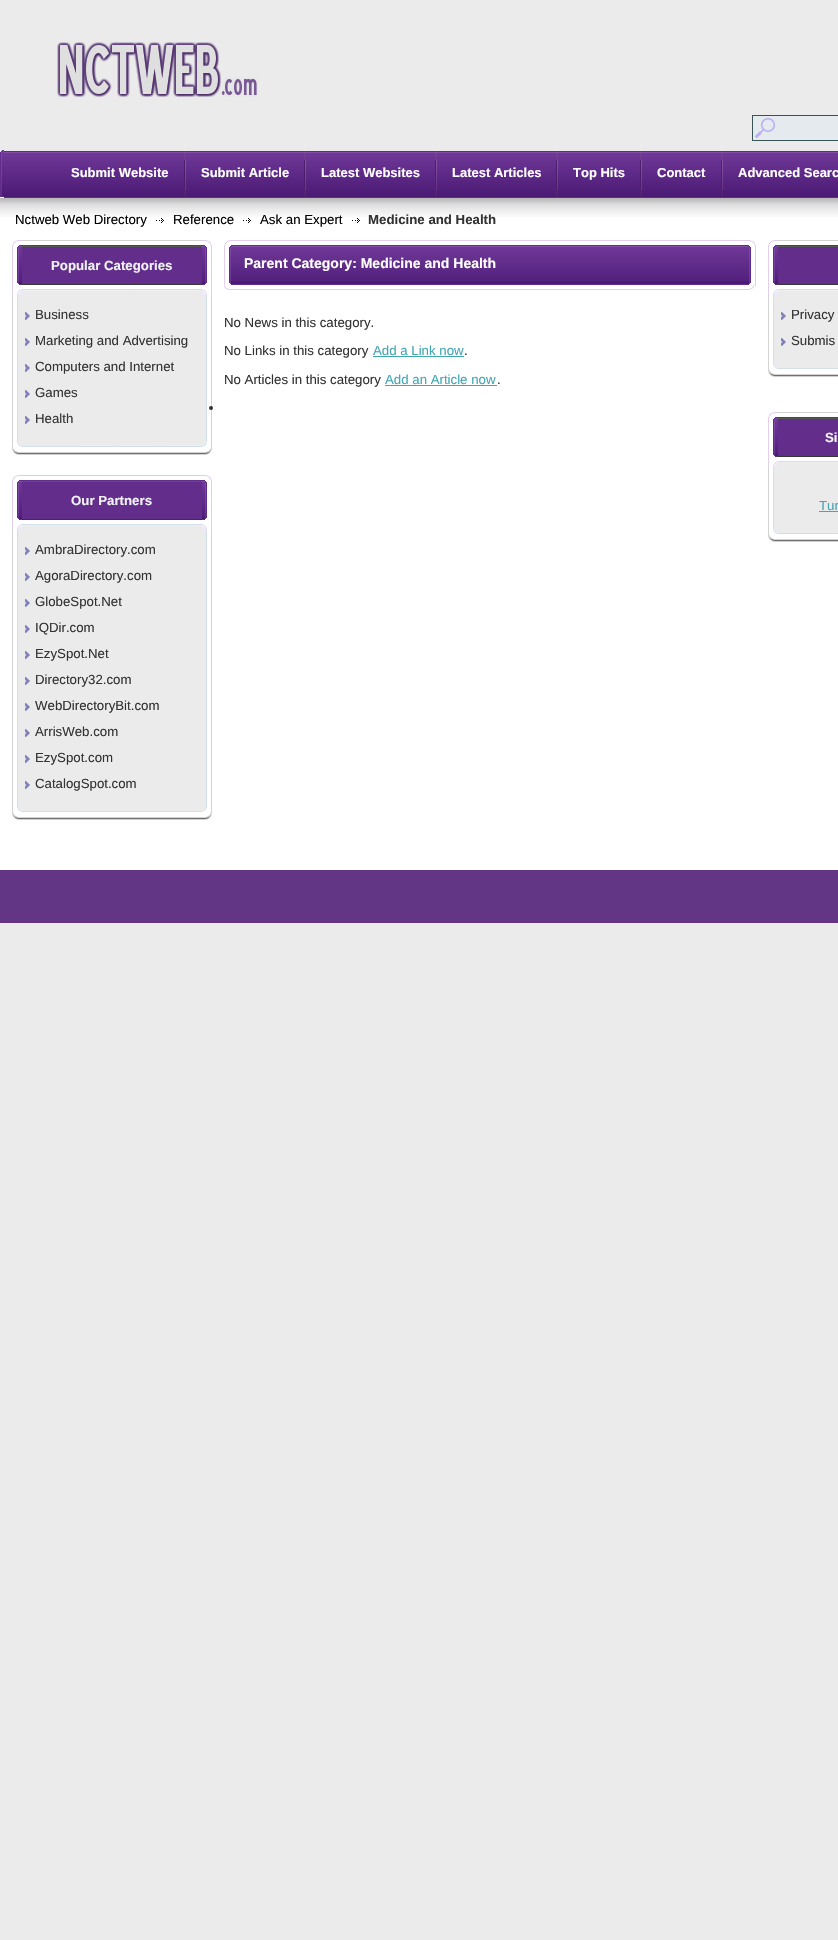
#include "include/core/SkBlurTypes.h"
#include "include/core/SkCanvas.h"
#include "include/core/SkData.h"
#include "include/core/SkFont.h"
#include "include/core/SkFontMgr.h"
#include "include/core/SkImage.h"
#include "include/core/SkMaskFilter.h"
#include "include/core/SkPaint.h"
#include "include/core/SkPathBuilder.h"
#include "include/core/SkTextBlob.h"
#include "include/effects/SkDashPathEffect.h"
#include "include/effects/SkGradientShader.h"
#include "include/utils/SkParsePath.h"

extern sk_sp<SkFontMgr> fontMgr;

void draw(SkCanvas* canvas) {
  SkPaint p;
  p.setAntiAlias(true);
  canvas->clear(SkColorSetRGB(235, 235, 235));
  canvas->drawImageRect(SkImages::DeferredFromEncodedData(SkData::MakeFromFileName("images/1.png")), SkRect::MakeLTRB(57, 42, 258, 97), SkSamplingOptions());
  p.setColor(SkColorSetRGB(229, 234, 238));
  canvas->drawRect(SkRect::MakeLTRB(753, 116, 838, 140), p);
  canvas->drawImageRect(SkImages::DeferredFromEncodedData(SkData::MakeFromFileName("images/2.png")), SkRect::MakeLTRB(755, 118, 775, 138), SkSamplingOptions());
  p.setStyle(SkPaint::kStroke_Style);
  p.setStrokeWidth(1);
  p.setColor(SkColorSetRGB(57, 83, 86));
  canvas->drawRect(SkRect::MakeLTRB(752.5f, 115.5f, 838.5f, 140.5f), p);
  canvas->drawImageRect(SkImages::DeferredFromEncodedData(SkData::MakeFromFileName("images/3.png")), SkRect::MakeLTRB(0, 150, 4, 197), SkSamplingOptions());
  p.setStyle(SkPaint::kFill_Style);
  p.setColor(SK_ColorWHITE);
  canvas->drawRect(SkRect::MakeLTRB(0, 197, 838, 870), p);
  canvas->drawImageRect(SkImages::DeferredFromEncodedData(SkData::MakeFromFileName("images/4.png")), SkRect::MakeLTRB(4, 151, 838, 198), SkSamplingOptions());
  canvas->drawImageRect(SkImages::DeferredFromEncodedData(SkData::MakeFromFileName("images/5.png")), SkRect::MakeLTRB(184, 151, 186, 198), SkSamplingOptions());
  canvas->drawImageRect(SkImages::DeferredFromEncodedData(SkData::MakeFromFileName("images/5.png")), SkRect::MakeLTRB(304, 151, 306, 198), SkSamplingOptions());
  canvas->drawImageRect(SkImages::DeferredFromEncodedData(SkData::MakeFromFileName("images/5.png")), SkRect::MakeLTRB(435, 151, 437, 198), SkSamplingOptions());
  canvas->drawImageRect(SkImages::DeferredFromEncodedData(SkData::MakeFromFileName("images/5.png")), SkRect::MakeLTRB(556, 151, 558, 198), SkSamplingOptions());
  canvas->drawImageRect(SkImages::DeferredFromEncodedData(SkData::MakeFromFileName("images/5.png")), SkRect::MakeLTRB(640, 151, 642, 198), SkSamplingOptions());
  canvas->drawImageRect(SkImages::DeferredFromEncodedData(SkData::MakeFromFileName("images/5.png")), SkRect::MakeLTRB(721, 151, 723, 198), SkSamplingOptions());
  canvas->drawImageRect(SkImages::DeferredFromEncodedData(SkData::MakeFromFileName("images/6.png")), SkRect::MakeLTRB(0, 198, 838, 217), SkSamplingOptions());
  canvas->drawImageRect(SkImages::DeferredFromEncodedData(SkData::MakeFromFileName("images/7.png")), SkRect::MakeLTRB(156, 218, 164, 223), SkSamplingOptions());
  canvas->drawImageRect(SkImages::DeferredFromEncodedData(SkData::MakeFromFileName("images/7.png")), SkRect::MakeLTRB(243, 218, 251, 223), SkSamplingOptions());
  canvas->drawImageRect(SkImages::DeferredFromEncodedData(SkData::MakeFromFileName("images/7.png")), SkRect::MakeLTRB(352, 218, 360, 223), SkSamplingOptions());
  canvas->drawImageRect(SkImages::DeferredFromEncodedData(SkData::MakeFromFileName("images/8.png")), SkRect::MakeLTRB(12, 240, 22, 295), SkSamplingOptions());
  canvas->drawImageRect(SkImages::DeferredFromEncodedData(SkData::MakeFromFileName("images/9.png")), SkRect::MakeLTRB(22, 240, 202, 295), SkSamplingOptions());
  canvas->drawImageRect(SkImages::DeferredFromEncodedData(SkData::MakeFromFileName("images/10.png")), SkRect::MakeLTRB(202, 240, 212, 295), SkSamplingOptions());
  canvas->drawImageRect(SkImages::DeferredFromEncodedData(SkData::MakeFromFileName("images/11.png")), SkRect::MakeLTRB(12, 295, 212, 441), SkSamplingOptions());
  canvas->drawImageRect(SkImages::DeferredFromEncodedData(SkData::MakeFromFileName("images/12.png")), SkRect::MakeLTRB(25, 312, 30, 320), SkSamplingOptions());
  canvas->drawImageRect(SkImages::DeferredFromEncodedData(SkData::MakeFromFileName("images/12.png")), SkRect::MakeLTRB(25, 338, 30, 346), SkSamplingOptions());
  canvas->drawImageRect(SkImages::DeferredFromEncodedData(SkData::MakeFromFileName("images/12.png")), SkRect::MakeLTRB(25, 364, 30, 372), SkSamplingOptions());
  canvas->drawImageRect(SkImages::DeferredFromEncodedData(SkData::MakeFromFileName("images/12.png")), SkRect::MakeLTRB(25, 390, 30, 398), SkSamplingOptions());
  canvas->drawImageRect(SkImages::DeferredFromEncodedData(SkData::MakeFromFileName("images/12.png")), SkRect::MakeLTRB(25, 416, 30, 424), SkSamplingOptions());
  canvas->drawImageRect(SkImages::DeferredFromEncodedData(SkData::MakeFromFileName("images/13.png")), SkRect::MakeLTRB(12, 441, 212, 455), SkSamplingOptions());
  canvas->drawImageRect(SkImages::DeferredFromEncodedData(SkData::MakeFromFileName("images/8.png")), SkRect::MakeLTRB(12, 475, 22, 530), SkSamplingOptions());
  canvas->drawImageRect(SkImages::DeferredFromEncodedData(SkData::MakeFromFileName("images/9.png")), SkRect::MakeLTRB(22, 475, 202, 530), SkSamplingOptions());
  canvas->drawImageRect(SkImages::DeferredFromEncodedData(SkData::MakeFromFileName("images/10.png")), SkRect::MakeLTRB(202, 475, 212, 530), SkSamplingOptions());
  canvas->drawImageRect(SkImages::DeferredFromEncodedData(SkData::MakeFromFileName("images/14.png")), SkRect::MakeLTRB(12, 530, 212, 806), SkSamplingOptions());
  canvas->drawImageRect(SkImages::DeferredFromEncodedData(SkData::MakeFromFileName("images/12.png")), SkRect::MakeLTRB(25, 547, 30, 555), SkSamplingOptions());
  canvas->drawImageRect(SkImages::DeferredFromEncodedData(SkData::MakeFromFileName("images/12.png")), SkRect::MakeLTRB(25, 573, 30, 581), SkSamplingOptions());
  canvas->drawImageRect(SkImages::DeferredFromEncodedData(SkData::MakeFromFileName("images/12.png")), SkRect::MakeLTRB(25, 599, 30, 607), SkSamplingOptions());
  canvas->drawImageRect(SkImages::DeferredFromEncodedData(SkData::MakeFromFileName("images/12.png")), SkRect::MakeLTRB(25, 625, 30, 633), SkSamplingOptions());
  canvas->drawImageRect(SkImages::DeferredFromEncodedData(SkData::MakeFromFileName("images/12.png")), SkRect::MakeLTRB(25, 651, 30, 659), SkSamplingOptions());
  canvas->drawImageRect(SkImages::DeferredFromEncodedData(SkData::MakeFromFileName("images/12.png")), SkRect::MakeLTRB(25, 677, 30, 685), SkSamplingOptions());
  canvas->drawImageRect(SkImages::DeferredFromEncodedData(SkData::MakeFromFileName("images/12.png")), SkRect::MakeLTRB(25, 703, 30, 711), SkSamplingOptions());
  canvas->drawImageRect(SkImages::DeferredFromEncodedData(SkData::MakeFromFileName("images/12.png")), SkRect::MakeLTRB(25, 729, 30, 737), SkSamplingOptions());
  canvas->drawImageRect(SkImages::DeferredFromEncodedData(SkData::MakeFromFileName("images/12.png")), SkRect::MakeLTRB(25, 755, 30, 763), SkSamplingOptions());
  canvas->drawImageRect(SkImages::DeferredFromEncodedData(SkData::MakeFromFileName("images/12.png")), SkRect::MakeLTRB(25, 781, 30, 789), SkSamplingOptions());
  canvas->drawImageRect(SkImages::DeferredFromEncodedData(SkData::MakeFromFileName("images/13.png")), SkRect::MakeLTRB(12, 806, 212, 820), SkSamplingOptions());
  canvas->drawImageRect(SkImages::DeferredFromEncodedData(SkData::MakeFromFileName("images/15.png")), SkRect::MakeLTRB(224, 240, 756, 290), SkSamplingOptions());
  p.setColor(SkColorSetRGB(67, 166, 180));
  canvas->drawRect(SkRect::MakeLTRB(373, 356, 464, 357), p);
  canvas->drawRect(SkRect::MakeLTRB(385, 385, 497, 386), p);
  p.setColor(SkColorSetRGB(51, 51, 51));
  canvas->drawCircle(211, 408, 2, p);
  canvas->drawImageRect(SkImages::DeferredFromEncodedData(SkData::MakeFromFileName("images/8.png")), SkRect::MakeLTRB(768, 240, 778, 295), SkSamplingOptions());
  canvas->drawImageRect(SkImages::DeferredFromEncodedData(SkData::MakeFromFileName("images/16.png")), SkRect::MakeLTRB(778, 240, 838, 295), SkSamplingOptions());
  canvas->drawImageRect(SkImages::DeferredFromEncodedData(SkData::MakeFromFileName("images/17.png")), SkRect::MakeLTRB(768, 295, 838, 363), SkSamplingOptions());
  canvas->drawImageRect(SkImages::DeferredFromEncodedData(SkData::MakeFromFileName("images/12.png")), SkRect::MakeLTRB(781, 312, 786, 320), SkSamplingOptions());
  canvas->drawImageRect(SkImages::DeferredFromEncodedData(SkData::MakeFromFileName("images/12.png")), SkRect::MakeLTRB(781, 338, 786, 346), SkSamplingOptions());
  canvas->drawImageRect(SkImages::DeferredFromEncodedData(SkData::MakeFromFileName("images/18.png")), SkRect::MakeLTRB(768, 363, 838, 377), SkSamplingOptions());
  canvas->drawImageRect(SkImages::DeferredFromEncodedData(SkData::MakeFromFileName("images/8.png")), SkRect::MakeLTRB(768, 412, 778, 467), SkSamplingOptions());
  canvas->drawImageRect(SkImages::DeferredFromEncodedData(SkData::MakeFromFileName("images/16.png")), SkRect::MakeLTRB(778, 412, 838, 467), SkSamplingOptions());
  canvas->drawImageRect(SkImages::DeferredFromEncodedData(SkData::MakeFromFileName("images/19.png")), SkRect::MakeLTRB(768, 467, 838, 528), SkSamplingOptions());
  p.setColor(SkColorSetRGB(67, 166, 180));
  canvas->drawRect(SkRect::MakeLTRB(819, 511, 838, 512), p);
  canvas->drawImageRect(SkImages::DeferredFromEncodedData(SkData::MakeFromFileName("images/18.png")), SkRect::MakeLTRB(768, 528, 838, 542), SkSamplingOptions());
  p.setColor(SkColorSetRGB(98, 53, 133));
  canvas->drawRect(SkRect::MakeLTRB(0, 870, 838, 923), p);
  SkFont font1(fontMgr->matchFamilyStyle("Liberation Sans", SkFontStyle::Bold()), 13);
  font1.setSubpixel(true);
  p.setColor(SK_ColorWHITE);
  canvas->drawString("Submit Website", 71, 177, font1, p);
  canvas->drawString("Submit Article", 201, 177, font1, p);
  canvas->drawString("Latest Websites", 321, 177, font1, p);
  canvas->drawString("Latest Articles", 452, 177, font1, p);
  canvas->drawString("Top Hits", 573, 177, font1, p);
  canvas->drawString("Contact", 657, 177, font1, p);
  canvas->drawString("Advanced Searc", 738, 177, font1, p);
  SkFont font2(fontMgr->matchFamilyStyle("Liberation Sans", SkFontStyle::Normal()), 13.25f);
  font2.setSubpixel(true);
  p.setColor(SK_ColorBLACK);
  canvas->drawString("Nctweb Web Directory", 15, 224, font2, p);
  canvas->drawString("Reference", 173, 224, font2, p);
  canvas->drawString("Ask an Expert", 260, 224, font2, p);
  SkFont font3(fontMgr->matchFamilyStyle("Liberation Sans", SkFontStyle::Bold()), 13.25f);
  font3.setSubpixel(true);
  p.setColor(SkColorSetRGB(51, 51, 51));
  canvas->drawString("Medicine and Health", 368, 224, font3, p);
  p.setColor(SkColorSetRGB(239, 242, 243));
  canvas->drawString("Popular Categories", 51, 270, font3, p);
  p.setColor(SkColorSetRGB(51, 51, 51));
  canvas->drawString("Business", 35, 319, font2, p);
  canvas->drawString("Marketing and Advertising", 35, 345, font2, p);
  canvas->drawString("Computers and Internet", 35, 371, font2, p);
  canvas->drawString("Games", 35, 397, font2, p);
  canvas->drawString("Health", 35, 423, font2, p);
  p.setColor(SkColorSetRGB(239, 242, 243));
  canvas->drawString("Our Partners", 71, 505, font3, p);
  p.setColor(SkColorSetRGB(51, 51, 51));
  canvas->drawString("AmbraDirectory.com", 35, 554, font2, p);
  canvas->drawString("AgoraDirectory.com", 35, 580, font2, p);
  canvas->drawString("GlobeSpot.Net", 35, 606, font2, p);
  canvas->drawString("IQDir.com", 35, 632, font2, p);
  canvas->drawString("EzySpot.Net", 35, 658, font2, p);
  canvas->drawString("Directory32.com", 35, 684, font2, p);
  canvas->drawString("WebDirectoryBit.com", 35, 710, font2, p);
  canvas->drawString("ArrisWeb.com", 35, 736, font2, p);
  canvas->drawString("EzySpot.com", 35, 762, font2, p);
  canvas->drawString("CatalogSpot.com", 35, 788, font2, p);
  SkFont font4(fontMgr->matchFamilyStyle("Liberation Sans", SkFontStyle::Bold()), 14);
  font4.setSubpixel(true);
  p.setColor(SK_ColorWHITE);
  canvas->drawString("Parent Category: Medicine and Health", 244, 268, font4, p);
  p.setColor(SkColorSetRGB(51, 51, 51));
  canvas->drawString("No News in this category.", 224, 327, font2, p);
  canvas->drawString("No Links in this category", 224, 355, font2, p);
  p.setColor(SkColorSetRGB(67, 166, 180));
  canvas->drawString("Add a Link now", 373, 355, font2, p);
  p.setColor(SkColorSetRGB(51, 51, 51));
  canvas->drawString(".", 464, 355, font2, p);
  canvas->drawString("No Articles in this category", 224, 384, font2, p);
  p.setColor(SkColorSetRGB(67, 166, 180));
  canvas->drawString("Add an Article now", 385, 384, font2, p);
  p.setColor(SkColorSetRGB(51, 51, 51));
  canvas->drawString(".", 497, 384, font2, p);
  canvas->drawString("Privacy", 791, 319, font2, p);
  canvas->drawString("Submis", 791, 345, font2, p);
  p.setColor(SkColorSetRGB(239, 242, 243));
  canvas->drawString("Si", 825, 442, font3, p);
  p.setColor(SkColorSetRGB(67, 166, 180));
  canvas->drawString("Tur", 819, 510, font2, p);
}
